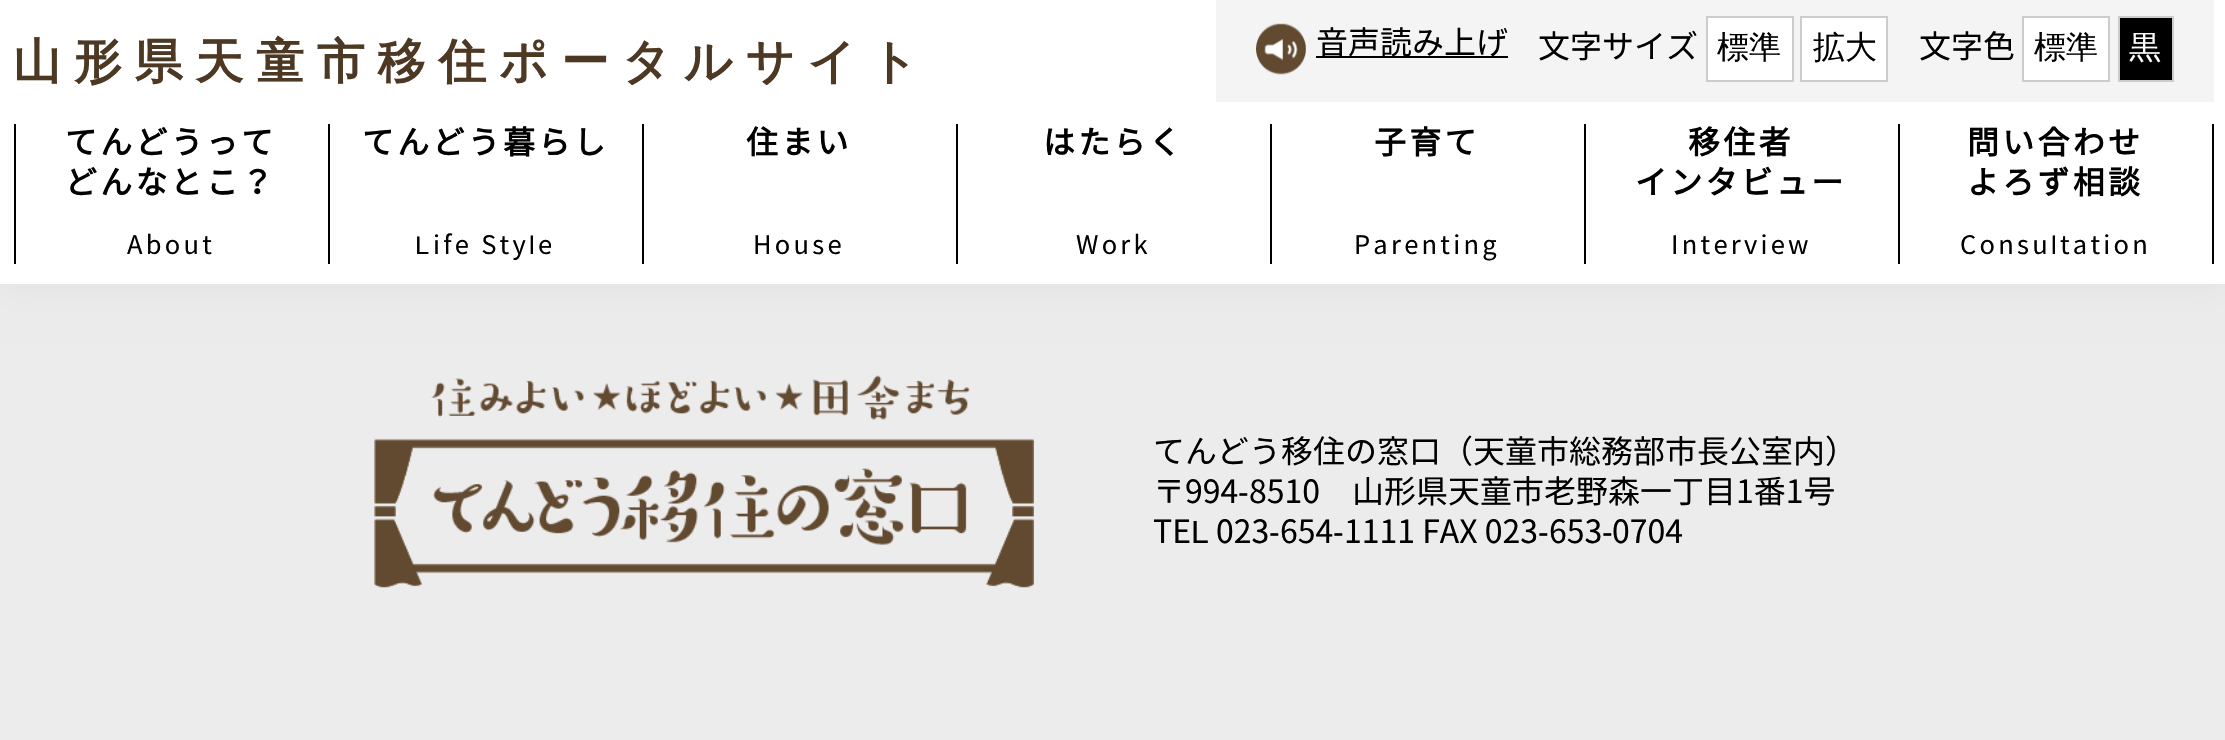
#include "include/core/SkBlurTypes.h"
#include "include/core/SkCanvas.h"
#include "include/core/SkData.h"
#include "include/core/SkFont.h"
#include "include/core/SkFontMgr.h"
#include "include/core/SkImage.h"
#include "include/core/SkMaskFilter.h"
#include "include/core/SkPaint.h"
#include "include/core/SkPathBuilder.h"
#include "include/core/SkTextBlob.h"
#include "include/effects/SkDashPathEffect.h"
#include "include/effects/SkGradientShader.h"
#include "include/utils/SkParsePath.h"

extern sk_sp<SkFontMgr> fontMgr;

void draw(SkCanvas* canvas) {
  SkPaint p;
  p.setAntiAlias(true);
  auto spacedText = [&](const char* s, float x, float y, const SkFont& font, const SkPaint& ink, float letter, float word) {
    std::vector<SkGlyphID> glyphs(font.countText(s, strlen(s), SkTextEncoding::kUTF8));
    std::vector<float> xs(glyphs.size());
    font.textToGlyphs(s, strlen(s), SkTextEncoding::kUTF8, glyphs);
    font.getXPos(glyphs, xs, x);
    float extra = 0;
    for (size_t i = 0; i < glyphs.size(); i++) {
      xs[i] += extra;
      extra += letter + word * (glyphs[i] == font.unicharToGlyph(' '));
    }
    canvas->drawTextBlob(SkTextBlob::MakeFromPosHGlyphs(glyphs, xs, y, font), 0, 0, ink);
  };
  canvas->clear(SkColorSetRGB(236, 236, 236));
  p.setColor(SkColorSetARGB(13, 0, 0, 0));
  p.setMaskFilter(SkMaskFilter::MakeBlur(kNormal_SkBlurStyle, 20));
  canvas->drawRect(SkRect::MakeLTRB(0, 0, 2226, 284), p);
  p.setMaskFilter(nullptr);
  p.setColor(SK_ColorWHITE);
  canvas->drawRect(SkRect::MakeLTRB(0, 0, 2225, 284), p);
  p.setColor(SkColorSetRGB(244, 244, 244));
  canvas->drawRect(SkRect::MakeLTRB(1216, 0, 2214, 102), p);
  canvas->drawImageRect(SkImages::DeferredFromEncodedData(SkData::MakeFromFileName("images/1.png")), SkRect::MakeLTRB(1256, 23, 1306, 75), SkSamplingOptions());
  p.setColor(SK_ColorBLACK);
  canvas->drawRect(SkRect::MakeLTRB(1316, 56, 1508, 58), p);
  p.setColor(SK_ColorWHITE);
  canvas->drawRect(SkRect::MakeLTRB(1707, 17, 1793, 81), p);
  p.setStyle(SkPaint::kStroke_Style);
  p.setStrokeWidth(2);
  p.setColor(SkColorSetRGB(204, 204, 204));
  canvas->drawRect(SkRect::MakeLTRB(1707, 17, 1793, 81), p);
  p.setStyle(SkPaint::kFill_Style);
  p.setColor(SK_ColorWHITE);
  canvas->drawRect(SkRect::MakeLTRB(1801, 17, 1887, 81), p);
  p.setStyle(SkPaint::kStroke_Style);
  p.setColor(SkColorSetRGB(204, 204, 204));
  canvas->drawRect(SkRect::MakeLTRB(1801, 17, 1887, 81), p);
  p.setStyle(SkPaint::kFill_Style);
  p.setColor(SK_ColorWHITE);
  canvas->drawRect(SkRect::MakeLTRB(2023, 17, 2109, 81), p);
  p.setStyle(SkPaint::kStroke_Style);
  p.setColor(SkColorSetRGB(204, 204, 204));
  canvas->drawRect(SkRect::MakeLTRB(2023, 17, 2109, 81), p);
  p.setStyle(SkPaint::kFill_Style);
  p.setColor(SK_ColorBLACK);
  canvas->drawRect(SkRect::MakeLTRB(2119, 17, 2173, 81), p);
  p.setStyle(SkPaint::kStroke_Style);
  p.setColor(SkColorSetRGB(204, 204, 204));
  canvas->drawRect(SkRect::MakeLTRB(2119, 17, 2173, 81), p);
  p.setStyle(SkPaint::kFill_Style);
  p.setColor(SK_ColorBLACK);
  canvas->drawRect(SkRect::MakeLTRB(14, 124, 16, 264), p);
  canvas->drawRect(SkRect::MakeLTRB(328, 124, 330, 264), p);
  canvas->drawRect(SkRect::MakeLTRB(642, 124, 644, 264), p);
  canvas->drawRect(SkRect::MakeLTRB(956, 124, 958, 264), p);
  canvas->drawRect(SkRect::MakeLTRB(1270, 124, 1272, 264), p);
  canvas->drawRect(SkRect::MakeLTRB(1584, 124, 1586, 264), p);
  canvas->drawRect(SkRect::MakeLTRB(2212, 124, 2214, 264), p);
  canvas->drawRect(SkRect::MakeLTRB(1898, 124, 1900, 264), p);
  canvas->drawImageRect(SkImages::DeferredFromEncodedData(SkData::MakeFromFileName("images/2.png")), SkRect::MakeLTRB(374, 375, 1034, 588), SkSamplingOptions());
  SkFont font1(fontMgr->matchFamilyStyle("WenQuanYi Zen Hei", SkFontStyle::Bold()), 48);
  font1.setSubpixel(true);
  p.setColor(SkColorSetRGB(77, 56, 35));
  spacedText("山形県天童市移住ポータルサイト", 13, 78, font1, p, 12.75f, 0);
  SkFont font2(fontMgr->matchFamilyStyle("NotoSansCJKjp", SkFontStyle::Normal()), 32);
  font2.setSubpixel(true);
  p.setColor(SK_ColorBLACK);
  canvas->drawString("音声読み上げ", 1316, 54, font2, p);
  canvas->drawString("文字サイズ", 1538, 58, font2, p);
  SkFont font3(fontMgr->matchFamilyStyle("WenQuanYi Zen Hei", SkFontStyle(500, SkFontStyle::kNormal_Width, SkFontStyle::kUpright_Slant)), 32);
  font3.setSubpixel(true);
  canvas->drawString("標準", 1717, 58, font3, p);
  canvas->drawString("拡大", 1813, 58, font3, p);
  canvas->drawString("文字色", 1919, 58, font2, p);
  canvas->drawString("標準", 2034, 58, font3, p);
  p.setColor(SK_ColorWHITE);
  canvas->drawString("黒", 2129, 58, font3, p);
  SkFont font4(fontMgr->matchFamilyStyle("NotoSansCJKjp", SkFontStyle::Bold()), 32);
  font4.setSubpixel(true);
  p.setColor(SK_ColorBLACK);
  spacedText("てんどうって", 65, 154, font4, p, 3.25f, 0);
  spacedText("どんなとこ？", 65, 194, font4, p, 3.25f, 0);
  SkFont font5(fontMgr->matchFamilyStyle("NotoSansCJKjp", SkFontStyle::Normal()), 25.5f);
  font5.setSubpixel(true);
  spacedText("About", 127, 254, font5, p, 3.25f, 0);
  spacedText("てんどう暮らし", 362, 154, font4, p, 3.25f, 0);
  spacedText("ife Sty e", 433, 254, font5, p, 3.25f, 0);
  SkFont font6(fontMgr->matchFamilyStyle("Liberation Sans", SkFontStyle::Normal()), 25.5f);
  font6.setSubpixel(true);
  spacedText("L", 415, 254, font6, p, 3.25f, 0);
  spacedText("l", 529, 254, font6, p, 3.25f, 0);
  spacedText("住まい", 746, 154, font4, p, 3.25f, 0);
  spacedText("House", 753, 254, font5, p, 3.25f, 0);
  spacedText("はたらく", 1043, 154, font4, p, 3.25f, 0);
  spacedText("Work", 1076, 254, font5, p, 3.25f, 0);
  spacedText("子育て", 1374, 154, font4, p, 3.25f, 0);
  spacedText("Parenting", 1354, 254, font5, p, 3.25f, 0);
  spacedText("移住者", 1688, 154, font4, p, 3.25f, 0);
  spacedText("インタビュー", 1635, 194, font4, p, 3.25f, 0);
  spacedText("Interview", 1671, 254, font5, p, 3.25f, 0);
  spacedText("問い合わせ", 1967, 154, font4, p, 3.25f, 0);
  spacedText("よろず相談", 1967, 194, font4, p, 3.25f, 0);
  spacedText("Consu tation", 1960, 254, font5, p, 3.25f, 0);
  spacedText("l", 2051, 254, font6, p, 3.25f, 0);
  canvas->drawString("てんどう移住の窓口（天童市総務部市長公室内）", 1153, 463, font2, p);
  canvas->drawString("〒994", 1153, 503, font2, p);
  SkFont font7(fontMgr->matchFamilyStyle("Liberation Sans", SkFontStyle::Normal()), 32);
  font7.setSubpixel(true);
  canvas->drawString("-", 1238, 503, font7, p);
  canvas->drawString("8510　山形県天童市老野森一丁目1番1号", 1249, 503, font2, p);
  canvas->drawString("TE", 1153, 543, font2, p);
  canvas->drawString("L", 1191, 543, font7, p);
  canvas->drawString("023", 1216, 543, font2, p);
  canvas->drawString("-", 1269, 543, font7, p);
  canvas->drawString("654", 1280, 543, font2, p);
  canvas->drawString("-", 1333, 543, font7, p);
  canvas->drawString("1111 FAX 023", 1344, 543, font2, p);
  canvas->drawString("-", 1538, 543, font7, p);
  canvas->drawString("653", 1549, 543, font2, p);
  canvas->drawString("-", 1602, 543, font7, p);
  canvas->drawString("0704", 1612, 543, font2, p);
}
